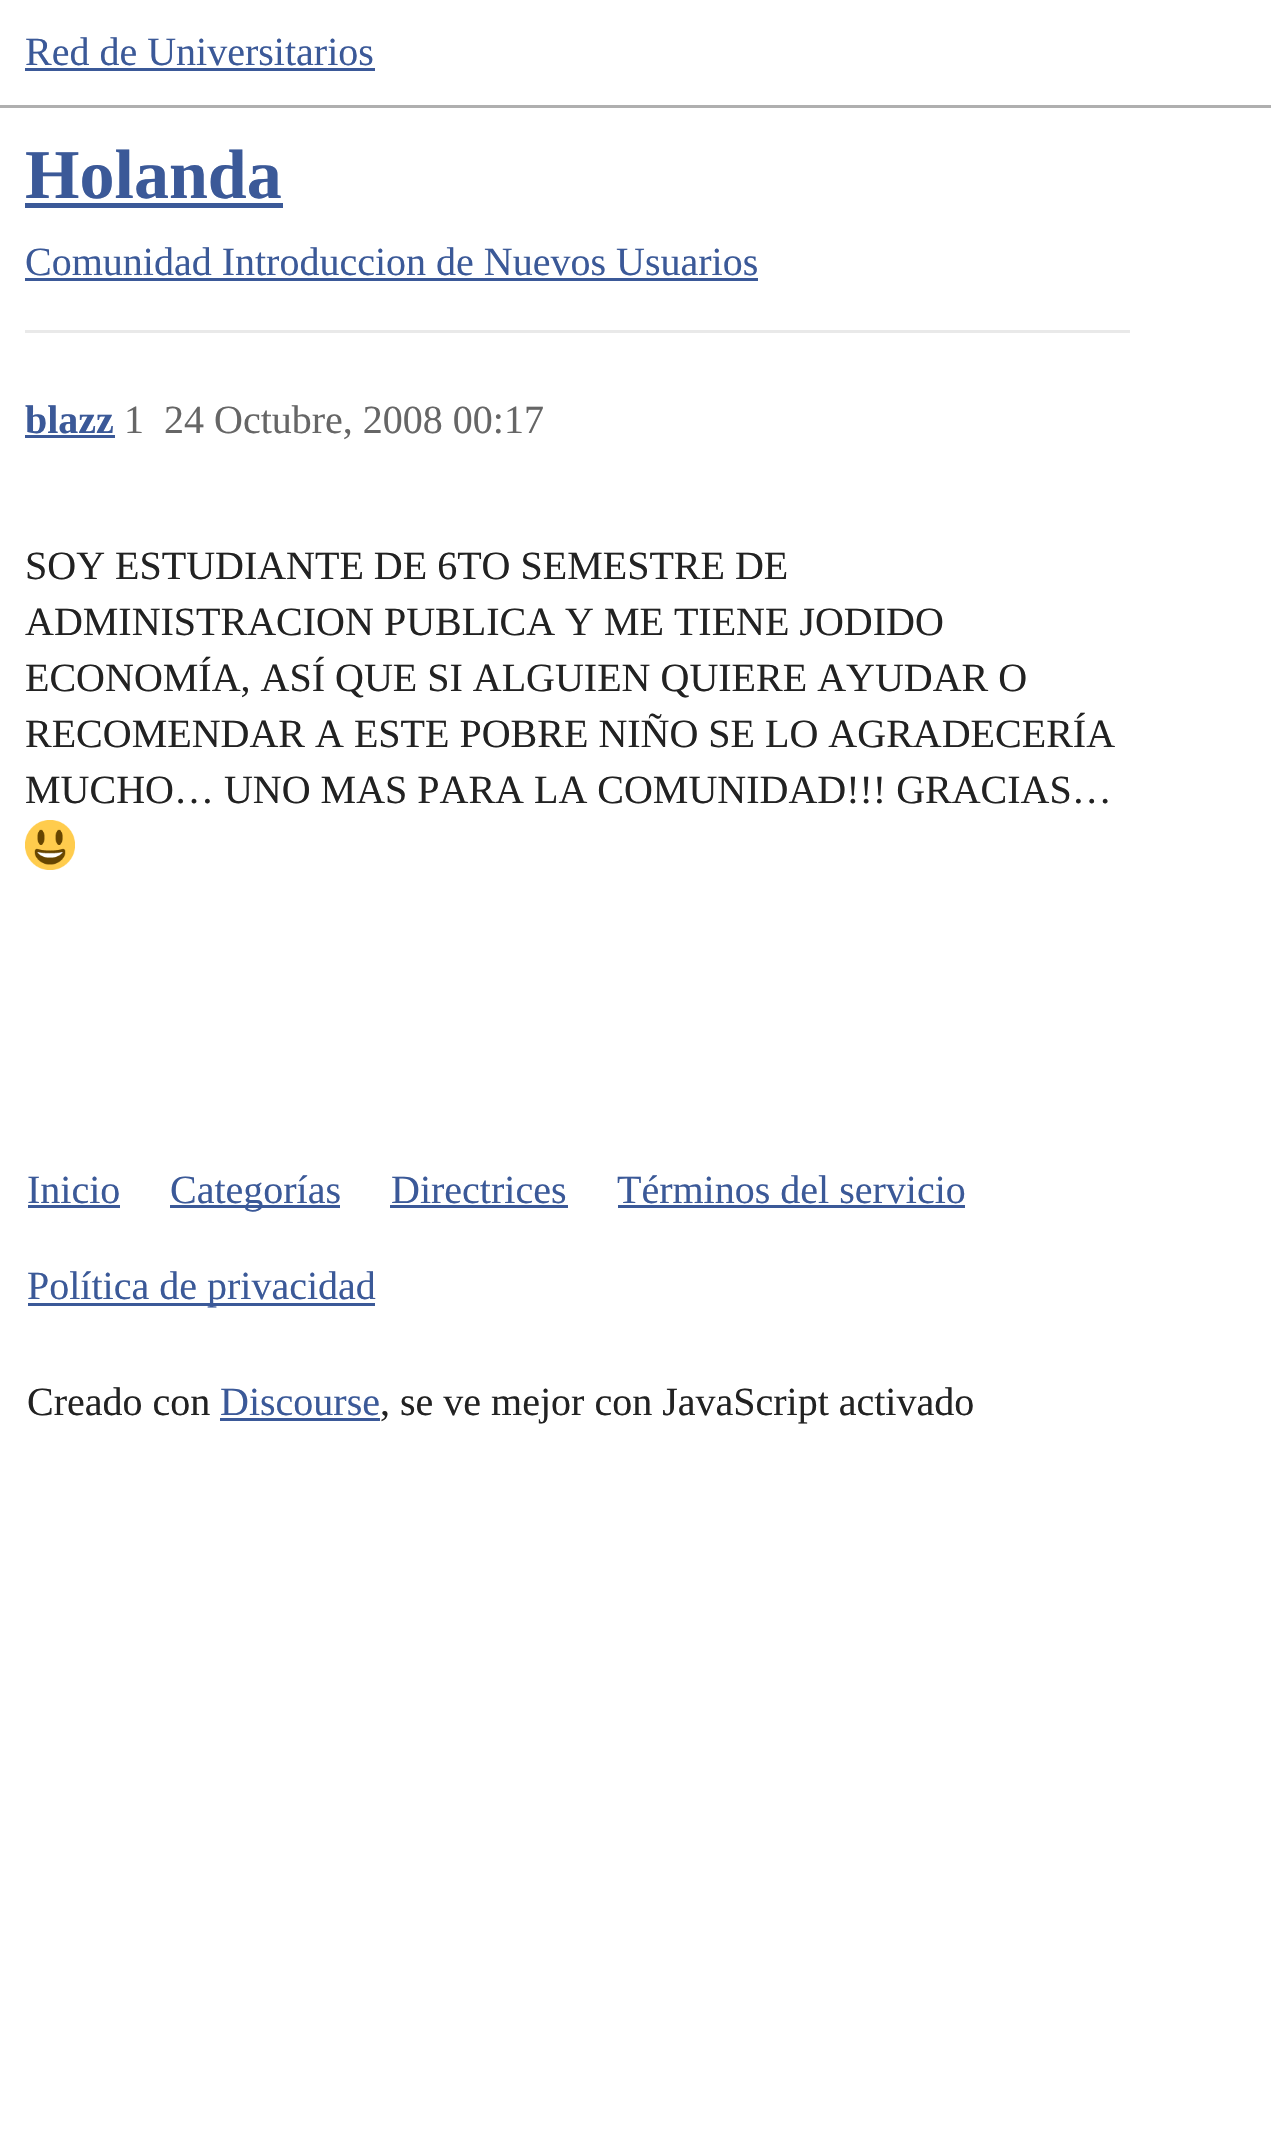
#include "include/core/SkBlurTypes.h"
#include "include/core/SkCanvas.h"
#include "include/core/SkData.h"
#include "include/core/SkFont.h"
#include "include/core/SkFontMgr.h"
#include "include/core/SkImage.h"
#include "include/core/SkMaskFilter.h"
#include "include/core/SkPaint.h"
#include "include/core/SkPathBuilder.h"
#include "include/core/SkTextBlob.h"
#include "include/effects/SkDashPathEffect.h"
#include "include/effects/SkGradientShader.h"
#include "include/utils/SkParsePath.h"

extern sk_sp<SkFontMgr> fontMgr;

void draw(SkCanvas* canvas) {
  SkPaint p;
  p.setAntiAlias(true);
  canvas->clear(SK_ColorWHITE);
  p.setColor(SkColorSetRGB(175, 175, 175));
  canvas->drawRect(SkRect::MakeLTRB(0, 105, 1271, 108), p);
  p.setColor(SkColorSetRGB(59, 89, 152));
  canvas->drawRect(SkRect::MakeLTRB(25, 68, 375, 71), p);
  canvas->drawRect(SkRect::MakeLTRB(25, 203, 283, 208), p);
  canvas->drawRect(SkRect::MakeLTRB(25, 278, 758, 281), p);
  p.setColor(SkColorSetRGB(233, 233, 233));
  canvas->drawRect(SkRect::MakeLTRB(25, 330, 1130, 333), p);
  p.setColor(SkColorSetRGB(59, 89, 152));
  canvas->drawRect(SkRect::MakeLTRB(25, 435, 115, 438), p);
  canvas->drawImageRect(SkImages::DeferredFromEncodedData(SkData::MakeFromFileName("images/1.png")), SkRect::MakeLTRB(25, 820, 75, 870), SkSamplingOptions());
  canvas->drawRect(SkRect::MakeLTRB(28, 1205, 120, 1208), p);
  canvas->drawRect(SkRect::MakeLTRB(170, 1205, 340, 1208), p);
  canvas->drawRect(SkRect::MakeLTRB(390, 1205, 568, 1208), p);
  canvas->drawRect(SkRect::MakeLTRB(618, 1205, 965, 1208), p);
  canvas->drawRect(SkRect::MakeLTRB(28, 1303, 375, 1306), p);
  canvas->drawRect(SkRect::MakeLTRB(220, 1418, 380, 1421), p);
  SkFont font1(fontMgr->matchFamilyStyle("Liberation Serif", SkFontStyle::Normal()), 40);
  font1.setSubpixel(true);
  canvas->drawString("Red de Universitarios", 25, 65, font1, p);
  SkFont font2(fontMgr->matchFamilyStyle("Liberation Serif", SkFontStyle::Bold()), 70);
  font2.setSubpixel(true);
  canvas->drawString("Holanda", 25, 198, font2, p);
  canvas->drawString("Comunidad Introduccion de Nuevos Usuarios", 25, 275, font1, p);
  SkFont font3(fontMgr->matchFamilyStyle("Liberation Serif", SkFontStyle::Bold()), 40);
  font3.setSubpixel(true);
  canvas->drawString("blazz", 25, 433, font3, p);
  p.setColor(SkColorSetRGB(102, 102, 102));
  canvas->drawString("1", 124, 433, font1, p);
  canvas->drawString("24 Octubre, 2008 00:17", 164, 433, font1, p);
  p.setColor(SkColorSetRGB(34, 34, 34));
  canvas->drawString("SOY ESTUDIANTE DE 6TO SEMESTRE DE", 25, 579, font1, p);
  canvas->drawString("ADMINISTRACION PUBLICA Y ME TIENE JODIDO", 25, 635, font1, p);
  canvas->drawString("ECONOMÍA, ASÍ QUE SI ALGUIEN QUIERE AYUDAR O", 25, 691, font1, p);
  canvas->drawString("RECOMENDAR A ESTE POBRE NIÑO SE LO AGRADECERÍA", 25, 747, font1, p);
  canvas->drawString("MUCHO… UNO MAS PARA LA COMUNIDAD!!! GRACIAS…", 25, 803, font1, p);
  p.setColor(SkColorSetRGB(59, 89, 152));
  canvas->drawString("Inicio", 27, 1203, font1, p);
  canvas->drawString("Categorías", 170, 1203, font1, p);
  canvas->drawString("Directrices", 391, 1203, font1, p);
  canvas->drawString("Términos del servicio", 617, 1203, font1, p);
  canvas->drawString("Política de privacidad", 27, 1299, font1, p);
  p.setColor(SkColorSetRGB(34, 34, 34));
  canvas->drawString("Creado con", 27, 1415, font1, p);
  p.setColor(SkColorSetRGB(59, 89, 152));
  canvas->drawString("Discourse", 220, 1415, font1, p);
  p.setColor(SkColorSetRGB(34, 34, 34));
  canvas->drawString(", se ve mejor con JavaScript activado", 380, 1415, font1, p);
}
